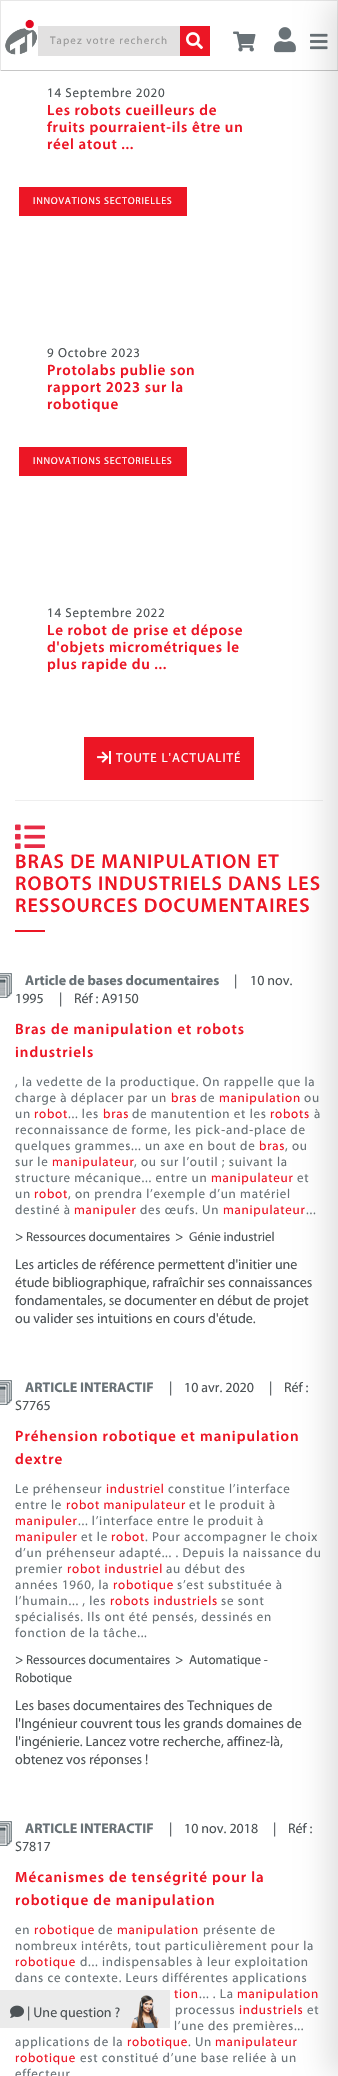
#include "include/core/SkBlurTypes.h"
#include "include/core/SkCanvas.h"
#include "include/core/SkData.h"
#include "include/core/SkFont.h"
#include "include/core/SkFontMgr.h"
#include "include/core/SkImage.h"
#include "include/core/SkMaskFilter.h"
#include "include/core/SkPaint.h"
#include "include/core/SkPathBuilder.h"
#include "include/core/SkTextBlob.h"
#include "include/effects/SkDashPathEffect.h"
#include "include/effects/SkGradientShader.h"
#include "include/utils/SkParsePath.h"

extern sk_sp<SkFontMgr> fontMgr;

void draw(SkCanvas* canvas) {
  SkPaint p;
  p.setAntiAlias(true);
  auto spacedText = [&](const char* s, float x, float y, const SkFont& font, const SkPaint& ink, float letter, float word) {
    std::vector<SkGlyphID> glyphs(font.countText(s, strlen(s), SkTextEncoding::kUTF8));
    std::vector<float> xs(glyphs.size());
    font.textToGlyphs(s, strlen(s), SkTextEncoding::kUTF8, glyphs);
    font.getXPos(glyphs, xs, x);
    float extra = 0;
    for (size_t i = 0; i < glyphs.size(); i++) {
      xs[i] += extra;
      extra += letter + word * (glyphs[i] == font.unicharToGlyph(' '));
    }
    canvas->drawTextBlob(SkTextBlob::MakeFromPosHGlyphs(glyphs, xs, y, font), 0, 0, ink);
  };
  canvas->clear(SK_ColorWHITE);
  p.setColor(SkColorSetRGB(231, 231, 231));
  canvas->drawRect(SkRect::MakeLTRB(0, 0, 338, 1), p);
  canvas->drawRect(SkRect::MakeLTRB(337, 0, 338, 71), p);
  p.setColor(SkColorSetRGB(198, 198, 198));
  canvas->drawRect(SkRect::MakeLTRB(0, 70, 338, 71), p);
  p.setColor(SkColorSetRGB(231, 231, 231));
  canvas->drawRect(SkRect::MakeLTRB(0, 0, 1, 71), p);
  canvas->drawImageRect(SkImages::DeferredFromEncodedData(SkData::MakeFromFileName("images/1.png")), SkRect::MakeLTRB(5, 19, 38, 55), SkSamplingOptions());
  p.setColor(SkColorSetRGB(226, 225, 225));
  canvas->drawRect(SkRect::MakeLTRB(38, 26, 180, 56), p);
  p.setColor(SkColorSetRGB(236, 22, 37));
  canvas->drawRect(SkRect::MakeLTRB(180, 26, 210, 56), p);
  canvas->drawImageRect(SkImages::DeferredFromEncodedData(SkData::MakeFromFileName("images/2.png")), SkRect::MakeLTRB(186, 32, 203, 50), SkSamplingOptions());
  canvas->drawImageRect(SkImages::DeferredFromEncodedData(SkData::MakeFromFileName("images/3.png")), SkRect::MakeLTRB(233, 31, 256, 52), SkSamplingOptions());
  canvas->drawImageRect(SkImages::DeferredFromEncodedData(SkData::MakeFromFileName("images/4.png")), SkRect::MakeLTRB(274, 27, 296, 53), SkSamplingOptions());
  canvas->drawImageRect(SkImages::DeferredFromEncodedData(SkData::MakeFromFileName("images/5.png")), SkRect::MakeLTRB(310, 33, 328, 50), SkSamplingOptions());
  p.setColor(SkColorSetRGB(238, 238, 238));
  canvas->drawRect(SkRect::MakeLTRB(15, 800, 323, 801), p);
  p.setColor(SkColorSetARGB(31, 0, 0, 0));
  p.setMaskFilter(SkMaskFilter::MakeBlur(kNormal_SkBlurStyle, 15));
  canvas->drawRect(SkRect::MakeLTRB(328, 0, 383, 2076), p);
  p.setMaskFilter(nullptr);
  p.setColor(SkColorSetRGB(236, 22, 37));
  canvas->drawRect(SkRect::MakeLTRB(19, 187, 187, 216), p);
  canvas->drawRect(SkRect::MakeLTRB(19, 447, 187, 476), p);
  canvas->drawRect(SkRect::MakeLTRB(84, 737, 254, 780), p);
  p.setColor(SK_ColorWHITE);
  canvas->drawRect(SkRect::MakeLTRB(109, 751, 111, 764), p);
  canvas->drawImageRect(SkImages::DeferredFromEncodedData(SkData::MakeFromFileName("images/6.png")), SkRect::MakeLTRB(97, 751, 109, 763), SkSamplingOptions());
  canvas->drawImageRect(SkImages::DeferredFromEncodedData(SkData::MakeFromFileName("images/7.png")), SkRect::MakeLTRB(15, 824, 45, 849), SkSamplingOptions());
  p.setColor(SkColorSetRGB(236, 22, 37));
  canvas->drawRect(SkRect::MakeLTRB(15, 930, 45, 932), p);
  canvas->drawImageRect(SkImages::DeferredFromEncodedData(SkData::MakeFromFileName("images/8.png")), SkRect::MakeLTRB(0, 973, 12, 998), SkSamplingOptions());
  canvas->drawImageRect(SkImages::DeferredFromEncodedData(SkData::MakeFromFileName("images/8.png")), SkRect::MakeLTRB(0, 1380, 12, 1405), SkSamplingOptions());
  canvas->drawImageRect(SkImages::DeferredFromEncodedData(SkData::MakeFromFileName("images/8.png")), SkRect::MakeLTRB(0, 1821, 12, 1846), SkSamplingOptions());
  p.setColor(SkColorSetRGB(235, 235, 235));
  canvas->drawRect(SkRect::MakeLTRB(0, 1990, 170, 2028), p);
  canvas->drawImageRect(SkImages::DeferredFromEncodedData(SkData::MakeFromFileName("images/9.png")), SkRect::MakeLTRB(10, 2005, 24, 2018), SkSamplingOptions());
  canvas->drawImageRect(SkImages::DeferredFromEncodedData(SkData::MakeFromFileName("images/10.png")), SkRect::MakeLTRB(131, 1995, 159, 2028), SkSamplingOptions());
  SkFont font1(fontMgr->matchFamilyStyle("Myriad", SkFontStyle::Normal()), 11);
  font1.setSubpixel(true);
  p.setColor(SkColorSetRGB(153, 153, 153));
  spacedText("Tapez votre recherch", 50, 44, font1, p, 1.1f, 0);
  SkFont font2(fontMgr->matchFamilyStyle("Myriad", SkFontStyle::Normal()), 13);
  font2.setSubpixel(true);
  p.setColor(SkColorSetRGB(77, 83, 86));
  spacedText("14 Septembre 2020", 47, 97, font2, p, 0.75f, 0);
  SkFont font3(fontMgr->matchFamilyStyle("Myriad", SkFontStyle(600, SkFontStyle::kNormal_Width, SkFontStyle::kUpright_Slant)), 15);
  font3.setSubpixel(true);
  p.setColor(SkColorSetRGB(236, 22, 37));
  spacedText("Les robots cueilleurs de", 47, 115, font3, p, 0.75f, 0);
  spacedText("fruits pourraient-ils être un", 47, 132, font3, p, 0.75f, 0);
  spacedText("réel atout ...", 47, 149, font3, p, 0.75f, 0);
  SkFont font4(fontMgr->matchFamilyStyle("Myriad", SkFontStyle::Normal()), 10);
  font4.setSubpixel(true);
  p.setColor(SK_ColorWHITE);
  spacedText("INNOVATIONS SECTORIELLES", 33, 204, font4, p, 0.75f, 0);
  p.setColor(SkColorSetRGB(77, 83, 86));
  spacedText("9 Octobre 2023", 47, 357, font2, p, 0.75f, 0);
  p.setColor(SkColorSetRGB(236, 22, 37));
  spacedText("Protolabs publie son", 47, 375, font3, p, 0.75f, 0);
  spacedText("rapport 2023 sur la", 47, 392, font3, p, 0.75f, 0);
  spacedText("robotique", 47, 409, font3, p, 0.75f, 0);
  p.setColor(SK_ColorWHITE);
  spacedText("INNOVATIONS SECTORIELLES", 33, 464, font4, p, 0.75f, 0);
  p.setColor(SkColorSetRGB(77, 83, 86));
  spacedText("14 Septembre 2022", 47, 617, font2, p, 0.75f, 0);
  p.setColor(SkColorSetRGB(236, 22, 37));
  spacedText("Le robot de prise et dépose", 47, 635, font3, p, 0.75f, 0);
  spacedText("d'objets micrométriques le", 47, 652, font3, p, 0.75f, 0);
  spacedText("plus rapide du ...", 47, 669, font3, p, 0.75f, 0);
  p.setColor(SK_ColorWHITE);
  spacedText("TOUTE L'ACTUALITÉ", 116, 762, font2, p, 1, 0);
  SkFont font5(fontMgr->matchFamilyStyle("Myriad", SkFontStyle(600, SkFontStyle::kNormal_Width, SkFontStyle::kUpright_Slant)), 20);
  font5.setSubpixel(true);
  p.setColor(SkColorSetRGB(236, 22, 37));
  spacedText("BRAS DE MANIPULATION ET", 15, 868, font5, p, 1, 0);
  spacedText("ROBOTS INDUSTRIELS DANS LES", 15, 890, font5, p, 1, 0);
  spacedText("RESSOURCES DOCUMENTAIRES", 15, 912, font5, p, 1, 0);
  SkFont font6(fontMgr->matchFamilyStyle("Myriad", SkFontStyle::Bold()), 14);
  font6.setSubpixel(true);
  p.setColor(SkColorSetRGB(105, 114, 119));
  canvas->drawString("Article de bases documentaires", 25, 985, font6, p);
  SkFont font7(fontMgr->matchFamilyStyle("Myriad", SkFontStyle::Normal()), 14);
  font7.setSubpixel(true);
  p.setColor(SkColorSetRGB(77, 83, 86));
  canvas->drawString("|", 234, 985, font7, p);
  canvas->drawString("10 nov.", 250, 985, font7, p);
  canvas->drawString("1995", 15, 1003, font7, p);
  canvas->drawString("|", 59, 1003, font7, p);
  canvas->drawString("Réf : A9150", 74, 1003, font7, p);
  p.setColor(SkColorSetRGB(236, 22, 37));
  spacedText("Bras de manipulation et robots", 15, 1034, font3, p, 1, 0);
  spacedText("industriels", 15, 1057, font3, p, 1, 0);
  p.setColor(SkColorSetRGB(105, 114, 119));
  spacedText(", la vedette de la productique. On rappelle que la", 15, 1086, font2, p, 0.75f, 0);
  spacedText("charge à déplacer par un", 15, 1102, font2, p, 0.75f, 0);
  p.setColor(SkColorSetRGB(236, 22, 37));
  spacedText("bras", 171, 1102, font2, p, 0.75f, 0);
  p.setColor(SkColorSetRGB(105, 114, 119));
  spacedText("de", 200, 1102, font2, p, 0.75f, 0);
  p.setColor(SkColorSetRGB(236, 22, 37));
  spacedText("manipulation", 219, 1102, font2, p, 0.75f, 0);
  p.setColor(SkColorSetRGB(105, 114, 119));
  spacedText("ou", 304, 1102, font2, p, 0.75f, 0);
  spacedText("un", 15, 1118, font2, p, 0.75f, 0);
  p.setColor(SkColorSetRGB(236, 22, 37));
  spacedText("robot", 34, 1118, font2, p, 0.75f, 0);
  p.setColor(SkColorSetRGB(105, 114, 119));
  spacedText("... les", 68, 1118, font2, p, 0.75f, 0);
  p.setColor(SkColorSetRGB(236, 22, 37));
  spacedText("bras", 103, 1118, font2, p, 0.75f, 0);
  p.setColor(SkColorSetRGB(105, 114, 119));
  spacedText("de manutention et les", 132, 1118, font2, p, 0.75f, 0);
  p.setColor(SkColorSetRGB(236, 22, 37));
  spacedText("robots", 270, 1118, font2, p, 0.75f, 0);
  p.setColor(SkColorSetRGB(105, 114, 119));
  spacedText("à", 314, 1118, font2, p, 0.75f, 0);
  spacedText("reconnaissance de forme, les pick", 15, 1134, font2, p, 0.75f, 0);
  SkFont font8(fontMgr->matchFamilyStyle("Liberation Sans", SkFontStyle::Normal()), 13);
  font8.setSubpixel(true);
  spacedText("‐", 221, 1134, font8, p, 0.75f, 0);
  spacedText("and", 226, 1134, font2, p, 0.75f, 0);
  spacedText("‐", 249, 1134, font8, p, 0.75f, 0);
  spacedText("place de", 254, 1134, font2, p, 0.75f, 0);
  spacedText("quelques grammes... un axe en bout de", 15, 1150, font2, p, 0.75f, 0);
  p.setColor(SkColorSetRGB(236, 22, 37));
  spacedText("bras", 259, 1150, font2, p, 0.75f, 0);
  p.setColor(SkColorSetRGB(105, 114, 119));
  spacedText(", ou", 285, 1150, font2, p, 0.75f, 0);
  spacedText("sur le", 15, 1166, font2, p, 0.75f, 0);
  p.setColor(SkColorSetRGB(236, 22, 37));
  spacedText("manipulateur", 52, 1166, font2, p, 0.75f, 0);
  p.setColor(SkColorSetRGB(105, 114, 119));
  spacedText(", ou sur l’outil ; suivant la", 134, 1166, font2, p, 0.75f, 0);
  spacedText("structure mécanique... entre un", 15, 1182, font2, p, 0.75f, 0);
  p.setColor(SkColorSetRGB(236, 22, 37));
  spacedText("manipulateur", 211, 1182, font2, p, 0.75f, 0);
  p.setColor(SkColorSetRGB(105, 114, 119));
  spacedText("et", 297, 1182, font2, p, 0.75f, 0);
  spacedText("un", 15, 1198, font2, p, 0.75f, 0);
  p.setColor(SkColorSetRGB(236, 22, 37));
  spacedText("robot", 34, 1198, font2, p, 0.75f, 0);
  p.setColor(SkColorSetRGB(105, 114, 119));
  spacedText(", on prendra l’exemple d’un matériel", 68, 1198, font2, p, 0.75f, 0);
  spacedText("destiné à", 15, 1214, font2, p, 0.75f, 0);
  p.setColor(SkColorSetRGB(236, 22, 37));
  spacedText("manipuler", 74, 1214, font2, p, 0.75f, 0);
  p.setColor(SkColorSetRGB(105, 114, 119));
  spacedText("des œufs. Un", 140, 1214, font2, p, 0.75f, 0);
  p.setColor(SkColorSetRGB(236, 22, 37));
  spacedText("manipulateur", 223, 1214, font2, p, 0.75f, 0);
  p.setColor(SkColorSetRGB(105, 114, 119));
  spacedText("...", 306, 1214, font2, p, 0.75f, 0);
  p.setColor(SkColorSetRGB(77, 83, 86));
  canvas->drawString(">", 15, 1241, font7, p);
  canvas->drawString("Ressources documentaires", 26, 1241, font2, p);
  canvas->drawString(">", 175, 1241, font7, p);
  canvas->drawString("Génie industriel", 189, 1241, font2, p);
  canvas->drawString("Les articles de référence permettent d'initier une", 15, 1269, font7, p);
  canvas->drawString("étude bibliographique, rafraîchir ses connaissances", 15, 1287, font7, p);
  canvas->drawString("fondamentales, se documenter en début de projet", 15, 1305, font7, p);
  canvas->drawString("ou valider ses intuitions en cours d'étude.", 15, 1323, font7, p);
  p.setColor(SkColorSetRGB(105, 114, 119));
  canvas->drawString("ARTICLE INTERACTIF", 25, 1392, font6, p);
  p.setColor(SkColorSetRGB(77, 83, 86));
  canvas->drawString("|", 169, 1392, font7, p);
  canvas->drawString("10 avr. 2020", 184, 1392, font7, p);
  canvas->drawString("|", 269, 1392, font7, p);
  canvas->drawString("Réf :", 284, 1392, font7, p);
  canvas->drawString("S7765", 15, 1410, font7, p);
  p.setColor(SkColorSetRGB(236, 22, 37));
  spacedText("Préhension robotique et manipulation", 15, 1441, font3, p, 1, 0);
  spacedText("dextre", 15, 1464, font3, p, 1, 0);
  p.setColor(SkColorSetRGB(105, 114, 119));
  spacedText("Le préhenseur", 15, 1493, font2, p, 0.75f, 0);
  p.setColor(SkColorSetRGB(236, 22, 37));
  spacedText("industriel", 106, 1493, font2, p, 0.75f, 0);
  p.setColor(SkColorSetRGB(105, 114, 119));
  spacedText("constitue l’interface", 168, 1493, font2, p, 0.75f, 0);
  spacedText("entre le", 15, 1509, font2, p, 0.75f, 0);
  p.setColor(SkColorSetRGB(236, 22, 37));
  spacedText("robot manipulateur", 66, 1509, font2, p, 0.75f, 0);
  p.setColor(SkColorSetRGB(105, 114, 119));
  spacedText("et le produit à", 189, 1509, font2, p, 0.75f, 0);
  p.setColor(SkColorSetRGB(236, 22, 37));
  spacedText("manipuler", 15, 1525, font2, p, 0.75f, 0);
  p.setColor(SkColorSetRGB(105, 114, 119));
  spacedText("... l’interface entre le produit à", 78, 1525, font2, p, 0.75f, 0);
  p.setColor(SkColorSetRGB(236, 22, 37));
  spacedText("manipuler", 15, 1541, font2, p, 0.75f, 0);
  p.setColor(SkColorSetRGB(105, 114, 119));
  spacedText("et le", 81, 1541, font2, p, 0.75f, 0);
  p.setColor(SkColorSetRGB(236, 22, 37));
  spacedText("robot", 111, 1541, font2, p, 0.75f, 0);
  p.setColor(SkColorSetRGB(105, 114, 119));
  spacedText(". Pour accompagner le choix", 145, 1541, font2, p, 0.75f, 0);
  spacedText("d’un préhenseur adapté... . Depuis la naissance du", 15, 1557, font2, p, 0.75f, 0);
  spacedText("premier", 15, 1573, font2, p, 0.75f, 0);
  p.setColor(SkColorSetRGB(236, 22, 37));
  spacedText("robot industriel", 67, 1573, font2, p, 0.75f, 0);
  p.setColor(SkColorSetRGB(105, 114, 119));
  spacedText("au début des", 166, 1573, font2, p, 0.75f, 0);
  spacedText("années 1960, la", 15, 1589, font2, p, 0.75f, 0);
  p.setColor(SkColorSetRGB(236, 22, 37));
  spacedText("robotique", 113, 1589, font2, p, 0.75f, 0);
  p.setColor(SkColorSetRGB(105, 114, 119));
  spacedText("s’est substituée à", 177, 1589, font2, p, 0.75f, 0);
  spacedText("l’humain... , les", 15, 1605, font2, p, 0.75f, 0);
  p.setColor(SkColorSetRGB(236, 22, 37));
  spacedText("robots industriels", 110, 1605, font2, p, 0.75f, 0);
  p.setColor(SkColorSetRGB(105, 114, 119));
  spacedText("se sont", 221, 1605, font2, p, 0.75f, 0);
  spacedText("spécialisés. Ils ont été pensés, dessinés en", 15, 1621, font2, p, 0.75f, 0);
  spacedText("fonction de la tâche...", 15, 1637, font2, p, 0.75f, 0);
  p.setColor(SkColorSetRGB(77, 83, 86));
  canvas->drawString(">", 15, 1664, font7, p);
  canvas->drawString("Ressources documentaires", 26, 1664, font2, p);
  canvas->drawString(">", 175, 1664, font7, p);
  canvas->drawString("Automatique -", 189, 1664, font2, p);
  canvas->drawString("Robotique", 15, 1682, font2, p);
  canvas->drawString("Les bases documentaires des Techniques de", 15, 1710, font7, p);
  canvas->drawString("l'Ingénieur couvrent tous les grands domaines de", 15, 1728, font7, p);
  canvas->drawString("l'ingénierie. Lancez votre recherche, affinez-là,", 15, 1746, font7, p);
  canvas->drawString("obtenez vos réponses !", 15, 1764, font7, p);
  p.setColor(SkColorSetRGB(105, 114, 119));
  canvas->drawString("ARTICLE INTERACTIF", 25, 1833, font6, p);
  p.setColor(SkColorSetRGB(77, 83, 86));
  canvas->drawString("|", 169, 1833, font7, p);
  canvas->drawString("10 nov. 2018", 184, 1833, font7, p);
  canvas->drawString("|", 273, 1833, font7, p);
  canvas->drawString("Réf :", 288, 1833, font7, p);
  canvas->drawString("S7817", 15, 1851, font7, p);
  p.setColor(SkColorSetRGB(236, 22, 37));
  spacedText("Mécanismes de tenségrité pour la", 15, 1882, font3, p, 1, 0);
  spacedText("robotique de manipulation", 15, 1905, font3, p, 1, 0);
  p.setColor(SkColorSetRGB(105, 114, 119));
  spacedText("en", 15, 1934, font2, p, 0.75f, 0);
  p.setColor(SkColorSetRGB(236, 22, 37));
  spacedText("robotique", 34, 1934, font2, p, 0.75f, 0);
  p.setColor(SkColorSetRGB(105, 114, 119));
  spacedText("de", 98, 1934, font2, p, 0.75f, 0);
  p.setColor(SkColorSetRGB(236, 22, 37));
  spacedText("manipulation", 117, 1934, font2, p, 0.75f, 0);
  p.setColor(SkColorSetRGB(105, 114, 119));
  spacedText("présente de", 203, 1934, font2, p, 0.75f, 0);
  spacedText("nombreux intérêts, tout particulièrement pour la", 15, 1950, font2, p, 0.75f, 0);
  p.setColor(SkColorSetRGB(236, 22, 37));
  spacedText("robotique", 15, 1966, font2, p, 0.75f, 0);
  p.setColor(SkColorSetRGB(105, 114, 119));
  spacedText("d... indispensables à leur exploitation", 80, 1966, font2, p, 0.75f, 0);
  spacedText("dans ce contexte. Leurs différentes applications", 15, 1982, font2, p, 0.75f, 0);
  p.setColor(SkColorSetRGB(236, 22, 37));
  spacedText("tion", 174, 1998, font2, p, 0.75f, 0);
  p.setColor(SkColorSetRGB(105, 114, 119));
  spacedText("... . La", 199, 1998, font2, p, 0.75f, 0);
  p.setColor(SkColorSetRGB(236, 22, 37));
  spacedText("manipulation", 237, 1998, font2, p, 0.75f, 0);
  p.setColor(SkColorSetRGB(105, 114, 119));
  spacedText("processus", 175, 2014, font2, p, 0.75f, 0);
  p.setColor(SkColorSetRGB(236, 22, 37));
  spacedText("industriels", 239, 2014, font2, p, 0.75f, 0);
  p.setColor(SkColorSetRGB(105, 114, 119));
  spacedText("et", 307, 2014, font2, p, 0.75f, 0);
  spacedText("l’une des premières...", 174, 2030, font2, p, 0.75f, 0);
  spacedText("applications de la", 15, 2046, font2, p, 0.75f, 0);
  p.setColor(SkColorSetRGB(236, 22, 37));
  spacedText("robotique", 127, 2046, font2, p, 0.75f, 0);
  p.setColor(SkColorSetRGB(105, 114, 119));
  spacedText(". Un", 188, 2046, font2, p, 0.75f, 0);
  p.setColor(SkColorSetRGB(236, 22, 37));
  spacedText("manipulateur", 215, 2046, font2, p, 0.75f, 0);
  spacedText("robotique", 15, 2062, font2, p, 0.75f, 0);
  p.setColor(SkColorSetRGB(105, 114, 119));
  spacedText("est constitué d’une base reliée à un", 80, 2062, font2, p, 0.75f, 0);
  spacedText("effecteur", 15, 2078, font2, p, 0.75f, 0);
  p.setColor(SkColorSetRGB(77, 83, 86));
  canvas->drawString("| Une question ?", 27, 2017, font7, p);
}
